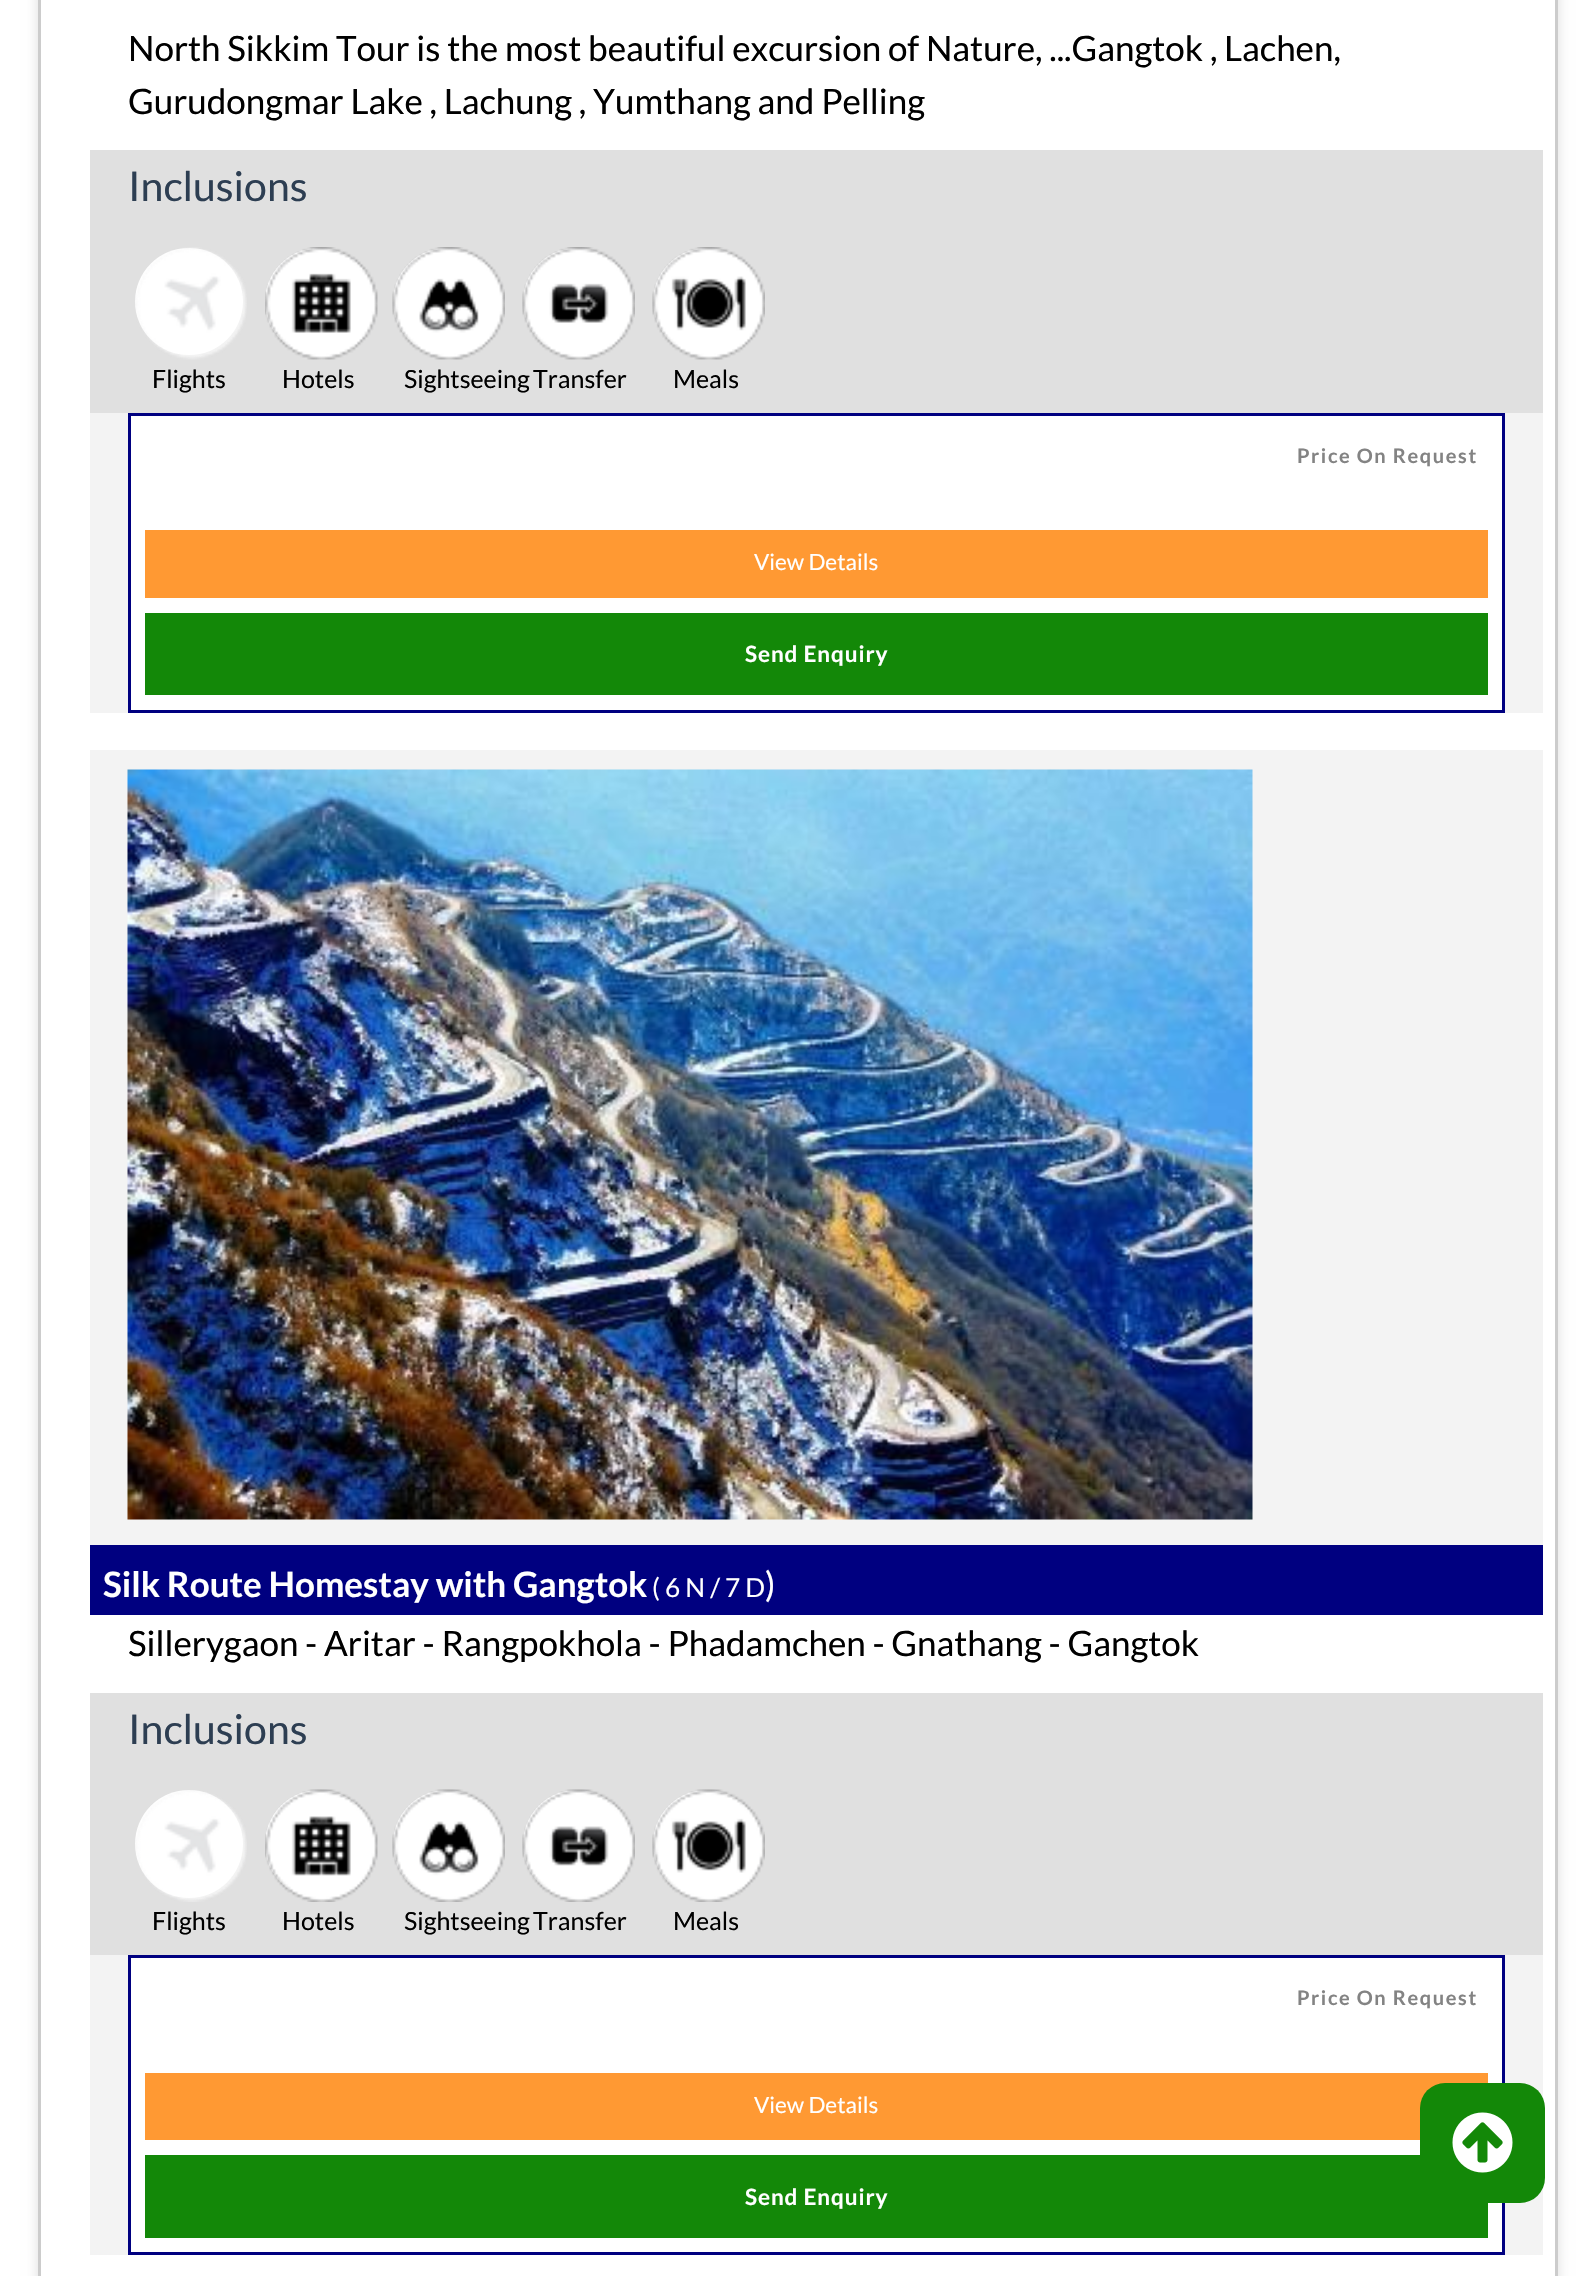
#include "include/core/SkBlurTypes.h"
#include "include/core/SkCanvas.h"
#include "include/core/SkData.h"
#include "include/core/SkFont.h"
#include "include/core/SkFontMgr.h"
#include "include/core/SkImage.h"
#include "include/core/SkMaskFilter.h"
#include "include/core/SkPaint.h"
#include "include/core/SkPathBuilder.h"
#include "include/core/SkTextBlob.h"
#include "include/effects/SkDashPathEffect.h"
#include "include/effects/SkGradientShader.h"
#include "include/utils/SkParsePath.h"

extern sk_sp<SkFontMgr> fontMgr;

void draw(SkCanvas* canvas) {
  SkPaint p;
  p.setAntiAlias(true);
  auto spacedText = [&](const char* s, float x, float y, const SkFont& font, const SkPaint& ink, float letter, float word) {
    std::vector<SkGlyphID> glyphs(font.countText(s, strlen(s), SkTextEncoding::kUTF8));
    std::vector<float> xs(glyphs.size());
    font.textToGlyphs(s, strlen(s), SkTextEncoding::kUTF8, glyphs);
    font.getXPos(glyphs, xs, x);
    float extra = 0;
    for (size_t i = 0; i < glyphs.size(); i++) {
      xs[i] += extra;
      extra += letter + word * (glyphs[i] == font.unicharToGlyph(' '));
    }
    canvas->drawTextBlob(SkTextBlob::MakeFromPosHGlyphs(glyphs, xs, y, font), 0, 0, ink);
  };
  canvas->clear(SK_ColorWHITE);
  p.setColor(SkColorSetARGB(33, 0, 0, 0));
  p.setMaskFilter(SkMaskFilter::MakeBlur(kNormal_SkBlurStyle, 6));
  canvas->drawRect(SkRect::MakeLTRB(38, -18, 1558, 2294), p);
  p.setMaskFilter(nullptr);
  p.setColor(SK_ColorWHITE);
  canvas->drawRect(SkRect::MakeLTRB(39.5f, -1.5f, 1556.5f, 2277.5f), p);
  p.setStyle(SkPaint::kStroke_Style);
  p.setStrokeWidth(3);
  p.setColor(SkColorSetRGB(204, 204, 204));
  canvas->drawRect(SkRect::MakeLTRB(39.5f, -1.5f, 1556.5f, 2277.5f), p);
  p.setStyle(SkPaint::kFill_Style);
  p.setColor(SkColorSetRGB(243, 243, 243));
  canvas->drawRect(SkRect::MakeLTRB(90, 413, 1543, 713), p);
  p.setColor(SkColorSetRGB(224, 224, 224));
  canvas->drawRect(SkRect::MakeLTRB(90, 150, 1543, 413), p);
  p.setColor(SK_ColorWHITE);
  canvas->drawRoundRect(SkRect::MakeLTRB(135, 248, 243, 355), 53.5f, 53.5f, p);
  canvas->drawImageRect(SkImages::DeferredFromEncodedData(SkData::MakeFromFileName("images/1.png")), SkRect::MakeLTRB(135, 247, 247, 360), SkSamplingOptions());
  canvas->drawRoundRect(SkRect::MakeLTRB(265, 248, 373, 355), 53.5f, 53.5f, p);
  canvas->drawImageRect(SkImages::DeferredFromEncodedData(SkData::MakeFromFileName("images/2.png")), SkRect::MakeLTRB(265, 247, 378, 360), SkSamplingOptions());
  canvas->drawCircle(446.5f, 301.5f, 53.5f, p);
  canvas->drawImageRect(SkImages::DeferredFromEncodedData(SkData::MakeFromFileName("images/3.png")), SkRect::MakeLTRB(392, 247, 505, 360), SkSamplingOptions());
  canvas->drawCircle(576.5f, 301.5f, 53.5f, p);
  canvas->drawImageRect(SkImages::DeferredFromEncodedData(SkData::MakeFromFileName("images/4.png")), SkRect::MakeLTRB(522, 247, 635, 360), SkSamplingOptions());
  canvas->drawCircle(706.5f, 301.5f, 53.5f, p);
  canvas->drawImageRect(SkImages::DeferredFromEncodedData(SkData::MakeFromFileName("images/5.png")), SkRect::MakeLTRB(652, 247, 765, 360), SkSamplingOptions());
  canvas->drawRect(SkRect::MakeLTRB(129.5f, 414.5f, 1503.5f, 711.5f), p);
  p.setStyle(SkPaint::kStroke_Style);
  p.setColor(SkColorSetRGB(0, 0, 128));
  canvas->drawRect(SkRect::MakeLTRB(129.5f, 414.5f, 1503.5f, 711.5f), p);
  p.setStyle(SkPaint::kFill_Style);
  p.setColor(SkColorSetRGB(255, 153, 51));
  canvas->drawRect(SkRect::MakeLTRB(145, 530, 1488, 598), p);
  p.setColor(SkColorSetRGB(19, 136, 8));
  canvas->drawRect(SkRect::MakeLTRB(145, 613, 1488, 695), p);
  p.setColor(SkColorSetRGB(243, 243, 243));
  canvas->drawRect(SkRect::MakeLTRB(90, 750, 1543, 2255), p);
  canvas->drawImageRect(SkImages::DeferredFromEncodedData(SkData::MakeFromFileName("images/6.png")), SkRect::MakeLTRB(127, 769, 1253, 1520), SkSamplingOptions());
  p.setColor(SK_ColorWHITE);
  canvas->drawRect(SkRect::MakeLTRB(90, 1615, 1543, 1693), p);
  p.setColor(SkColorSetRGB(0, 0, 128));
  canvas->drawRect(SkRect::MakeLTRB(90, 1545, 1543, 1615), p);
  p.setColor(SkColorSetRGB(224, 224, 224));
  canvas->drawRect(SkRect::MakeLTRB(90, 1693, 1543, 1955), p);
  p.setColor(SK_ColorWHITE);
  canvas->drawCircle(189, 1844, 54, p);
  canvas->drawImageRect(SkImages::DeferredFromEncodedData(SkData::MakeFromFileName("images/7.png")), SkRect::MakeLTRB(135, 1790, 247, 1902), SkSamplingOptions());
  canvas->drawCircle(319, 1844, 54, p);
  canvas->drawImageRect(SkImages::DeferredFromEncodedData(SkData::MakeFromFileName("images/8.png")), SkRect::MakeLTRB(265, 1789, 378, 1902), SkSamplingOptions());
  canvas->drawRoundRect(SkRect::MakeLTRB(393, 1790, 500, 1898), 53.5f, 53.5f, p);
  canvas->drawImageRect(SkImages::DeferredFromEncodedData(SkData::MakeFromFileName("images/9.png")), SkRect::MakeLTRB(392, 1789, 505, 1902), SkSamplingOptions());
  canvas->drawRoundRect(SkRect::MakeLTRB(523, 1790, 630, 1898), 53.5f, 53.5f, p);
  canvas->drawImageRect(SkImages::DeferredFromEncodedData(SkData::MakeFromFileName("images/10.png")), SkRect::MakeLTRB(522, 1789, 635, 1902), SkSamplingOptions());
  canvas->drawRoundRect(SkRect::MakeLTRB(653, 1790, 760, 1898), 53.5f, 53.5f, p);
  canvas->drawImageRect(SkImages::DeferredFromEncodedData(SkData::MakeFromFileName("images/11.png")), SkRect::MakeLTRB(652, 1789, 765, 1902), SkSamplingOptions());
  canvas->drawRect(SkRect::MakeLTRB(129.5f, 1956.5f, 1503.5f, 2253.5f), p);
  p.setStyle(SkPaint::kStroke_Style);
  p.setColor(SkColorSetRGB(0, 0, 128));
  canvas->drawRect(SkRect::MakeLTRB(129.5f, 1956.5f, 1503.5f, 2253.5f), p);
  p.setStyle(SkPaint::kFill_Style);
  p.setColor(SkColorSetRGB(255, 153, 51));
  canvas->drawRect(SkRect::MakeLTRB(145, 2073, 1488, 2140), p);
  p.setColor(SkColorSetRGB(19, 136, 8));
  canvas->drawRect(SkRect::MakeLTRB(145, 2155, 1488, 2238), p);
  canvas->drawRoundRect(SkRect::MakeLTRB(1420, 2083, 1545, 2203), 25, 25, p);
  canvas->drawImageRect(SkImages::DeferredFromEncodedData(SkData::MakeFromFileName("images/12.png")), SkRect::MakeLTRB(1452, 2112, 1513, 2173), SkSamplingOptions());
  SkFont font1(fontMgr->matchFamilyStyle("Lato", SkFontStyle::Normal()), 35);
  font1.setSubpixel(true);
  p.setColor(SK_ColorBLACK);
  canvas->drawString("North Sikkim Tour is the most beautiful excursion of Nature, ...Gangtok , Lachen,", 128, 61, font1, p);
  canvas->drawString("Gurudongmar Lake , Lachung , Yumthang and Pelling", 128, 114, font1, p);
  SkFont font2(fontMgr->matchFamilyStyle("Lato", SkFontStyle::Normal()), 41);
  font2.setSubpixel(true);
  p.setColor(SkColorSetRGB(45, 62, 82));
  canvas->drawString("Inclusions", 128, 201, font2, p);
  SkFont font3(fontMgr->matchFamilyStyle("Lato", SkFontStyle::Normal()), 25);
  font3.setSubpixel(true);
  p.setColor(SK_ColorBLACK);
  canvas->drawString("Flights", 152, 388, font3, p);
  canvas->drawString("Hotels", 282, 388, font3, p);
  canvas->drawString("Sightseeing", 404, 388, font3, p);
  canvas->drawString("Transfer", 533, 388, font3, p);
  canvas->drawString("Meals", 673, 388, font3, p);
  SkFont font4(fontMgr->matchFamilyStyle("Lato", SkFontStyle::Bold()), 20);
  font4.setSubpixel(true);
  p.setColor(SkColorSetRGB(131, 131, 131));
  spacedText("Price On Request", 1297, 463, font4, p, 1.6f, 0);
  SkFont font5(fontMgr->matchFamilyStyle("Lato", SkFontStyle::Normal()), 22.5f);
  font5.setSubpixel(true);
  p.setColor(SK_ColorWHITE);
  canvas->drawString("View Details", 754, 570, font5, p);
  SkFont font6(fontMgr->matchFamilyStyle("Lato", SkFontStyle::Bold()), 22.5f);
  font6.setSubpixel(true);
  spacedText("Send Enquiry", 745, 662, font6, p, 0.9f, 0);
  SkFont font7(fontMgr->matchFamilyStyle("Lato", SkFontStyle::Bold()), 35);
  font7.setSubpixel(true);
  canvas->drawString("Silk Route Homestay with Gangtok", 103, 1597, font7, p);
  SkFont font8(fontMgr->matchFamilyStyle("Lato", SkFontStyle::Normal()), 26.25f);
  font8.setSubpixel(true);
  canvas->drawString("( 6 N / 7 D", 652, 1597, font8, p);
  canvas->drawString(")", 765, 1597, font1, p);
  p.setColor(SK_ColorBLACK);
  canvas->drawString("Sillerygaon - Aritar - Rangpokhola - Phadamchen - Gnathang - Gangtok", 128, 1656, font1, p);
  p.setColor(SkColorSetRGB(45, 62, 82));
  canvas->drawString("Inclusions", 128, 1744, font2, p);
  p.setColor(SK_ColorBLACK);
  canvas->drawString("Flights", 152, 1930, font3, p);
  canvas->drawString("Hotels", 282, 1930, font3, p);
  canvas->drawString("Sightseeing", 404, 1930, font3, p);
  canvas->drawString("Transfer", 533, 1930, font3, p);
  canvas->drawString("Meals", 673, 1930, font3, p);
  p.setColor(SkColorSetRGB(131, 131, 131));
  spacedText("Price On Request", 1297, 2005, font4, p, 1.6f, 0);
  p.setColor(SK_ColorWHITE);
  canvas->drawString("View Details", 754, 2113, font5, p);
  spacedText("Send Enquiry", 745, 2205, font6, p, 0.9f, 0);
}
